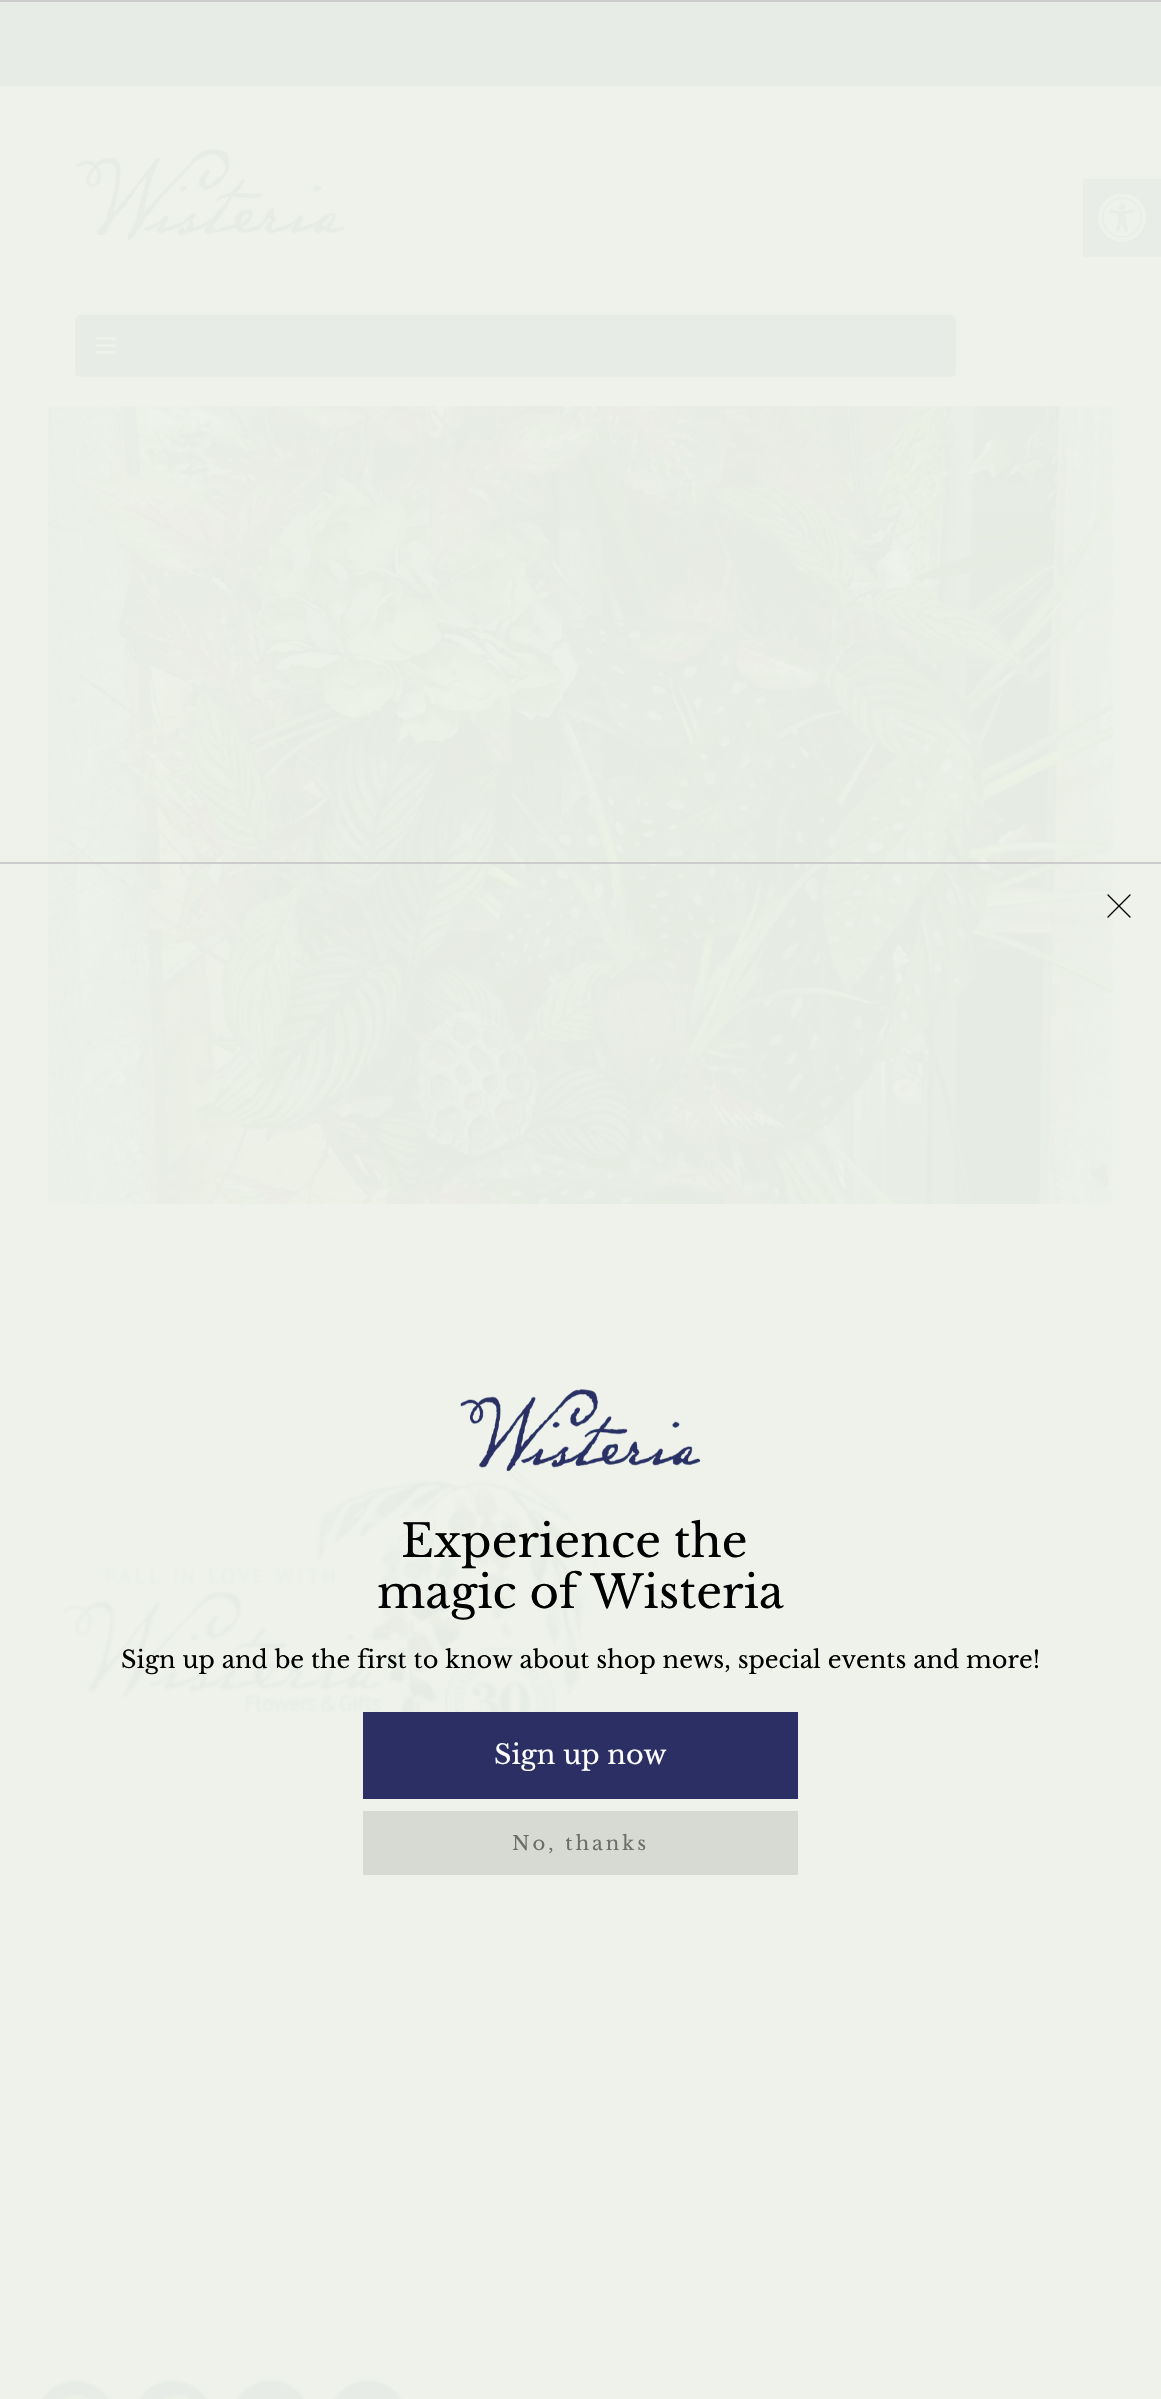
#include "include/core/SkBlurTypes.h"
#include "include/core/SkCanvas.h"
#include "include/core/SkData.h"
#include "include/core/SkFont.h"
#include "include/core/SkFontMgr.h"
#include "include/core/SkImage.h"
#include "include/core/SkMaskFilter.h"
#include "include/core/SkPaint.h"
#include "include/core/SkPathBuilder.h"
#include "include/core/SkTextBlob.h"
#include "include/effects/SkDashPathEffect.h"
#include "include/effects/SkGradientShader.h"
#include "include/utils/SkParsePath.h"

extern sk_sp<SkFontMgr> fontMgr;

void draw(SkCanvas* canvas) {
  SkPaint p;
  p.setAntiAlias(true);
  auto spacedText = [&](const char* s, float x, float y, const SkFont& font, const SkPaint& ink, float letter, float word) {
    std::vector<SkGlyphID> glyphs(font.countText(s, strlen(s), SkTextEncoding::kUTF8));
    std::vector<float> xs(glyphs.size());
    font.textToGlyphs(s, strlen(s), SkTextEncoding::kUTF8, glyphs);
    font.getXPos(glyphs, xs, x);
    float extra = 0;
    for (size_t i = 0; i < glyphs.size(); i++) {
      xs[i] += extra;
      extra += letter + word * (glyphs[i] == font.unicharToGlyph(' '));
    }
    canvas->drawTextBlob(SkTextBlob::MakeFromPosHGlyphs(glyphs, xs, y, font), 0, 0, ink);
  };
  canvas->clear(SkColorSetRGB(238, 242, 235));
  p.setColor(SkColorSetRGB(231, 236, 230));
  canvas->drawRect(SkRect::MakeLTRB(0, 2, 1161, 86), p);
  canvas->drawImageRect(SkImages::DeferredFromEncodedData(SkData::MakeFromFileName("images/1.png")), SkRect::MakeLTRB(75, 148, 345, 241), SkSamplingOptions());
  canvas->drawRoundRect(SkRect::MakeLTRB(75, 315, 956, 377), 5, 5, p);
  canvas->drawImageRect(SkImages::DeferredFromEncodedData(SkData::MakeFromFileName("images/2.png")), SkRect::MakeLTRB(96, 336, 116, 355), SkSamplingOptions());
  canvas->drawImageRect(SkImages::DeferredFromEncodedData(SkData::MakeFromFileName("images/3.png")), SkRect::MakeLTRB(48, 406, 1113, 1204), SkSamplingOptions());
  canvas->drawImageRect(SkImages::DeferredFromEncodedData(SkData::MakeFromFileName("images/4.png")), SkRect::MakeLTRB(62, 1469, 618, 1713), SkSamplingOptions());
  canvas->drawImageRect(SkImages::DeferredFromEncodedData(SkData::MakeFromFileName("images/5.png")), SkRect::MakeLTRB(41, 2379, 110, 2399), SkSamplingOptions());
  canvas->drawImageRect(SkImages::DeferredFromEncodedData(SkData::MakeFromFileName("images/6.png")), SkRect::MakeLTRB(138, 2379, 208, 2399), SkSamplingOptions());
  canvas->drawImageRect(SkImages::DeferredFromEncodedData(SkData::MakeFromFileName("images/7.png")), SkRect::MakeLTRB(235, 2379, 305, 2399), SkSamplingOptions());
  canvas->drawImageRect(SkImages::DeferredFromEncodedData(SkData::MakeFromFileName("images/8.png")), SkRect::MakeLTRB(333, 2379, 403, 2399), SkSamplingOptions());
  p.setColor(SkColorSetRGB(232, 237, 232));
  canvas->drawRect(SkRect::MakeLTRB(1083, 179, 1161, 257), p);
  canvas->drawImageRect(SkImages::DeferredFromEncodedData(SkData::MakeFromFileName("images/9.png")), SkRect::MakeLTRB(1098, 194, 1146, 242), SkSamplingOptions());
  p.setStyle(SkPaint::kStroke_Style);
  p.setStrokeWidth(2);
  p.setColor(SkColorSetRGB(204, 204, 204));
  canvas->drawRect(SkRect::MakeLTRB(-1, 1, 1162, 863), p);
  p.setStrokeWidth(1.3f);
  p.setStrokeCap(SkPaint::kRound_Cap);
  p.setColor(SK_ColorBLACK);
  canvas->drawPath(SkPathBuilder().moveTo(1108, 895).lineTo(1130, 917).moveTo(1130, 895).lineTo(1108, 917).detach(), p);
  canvas->drawImageRect(SkImages::DeferredFromEncodedData(SkData::MakeFromFileName("images/10.png")), SkRect::MakeLTRB(460, 1389, 701, 1472), SkSamplingOptions());
  p.setStyle(SkPaint::kFill_Style);
  p.setColor(SkColorSetRGB(43, 47, 100));
  canvas->drawRect(SkRect::MakeLTRB(363, 1712, 798, 1799), p);
  p.setColor(SkColorSetRGB(214, 218, 211));
  canvas->drawRect(SkRect::MakeLTRB(363, 1811, 798, 1875), p);
  SkFont font1(fontMgr->matchFamilyStyle("Libre Baskerville", SkFontStyle::Normal()), 45);
  font1.setSubpixel(true);
  p.setColor(SK_ColorBLACK);
  canvas->drawString("Experience the", 401, 1557, font1, p);
  canvas->drawString("magic of Wisteria", 377, 1608, font1, p);
  SkFont font2(fontMgr->matchFamilyStyle("Libre Baskerville", SkFontStyle::Normal()), 24);
  font2.setSubpixel(true);
  canvas->drawString("Sign up and be the first to know about shop news, special events and more!", 121, 1668, font2, p);
  SkFont font3(fontMgr->matchFamilyStyle("Libre Baskerville", SkFontStyle::Normal()), 27);
  font3.setSubpixel(true);
  p.setColor(SK_ColorWHITE);
  canvas->drawString("Sign up now", 494, 1764, font3, p);
  SkFont font4(fontMgr->matchFamilyStyle("Libre Baskerville", SkFontStyle::Normal()), 19.5f);
  font4.setSubpixel(true);
  p.setColor(SkColorSetRGB(107, 109, 106));
  spacedText("No, thanks", 512, 1850, font4, p, 3, 0);
}
